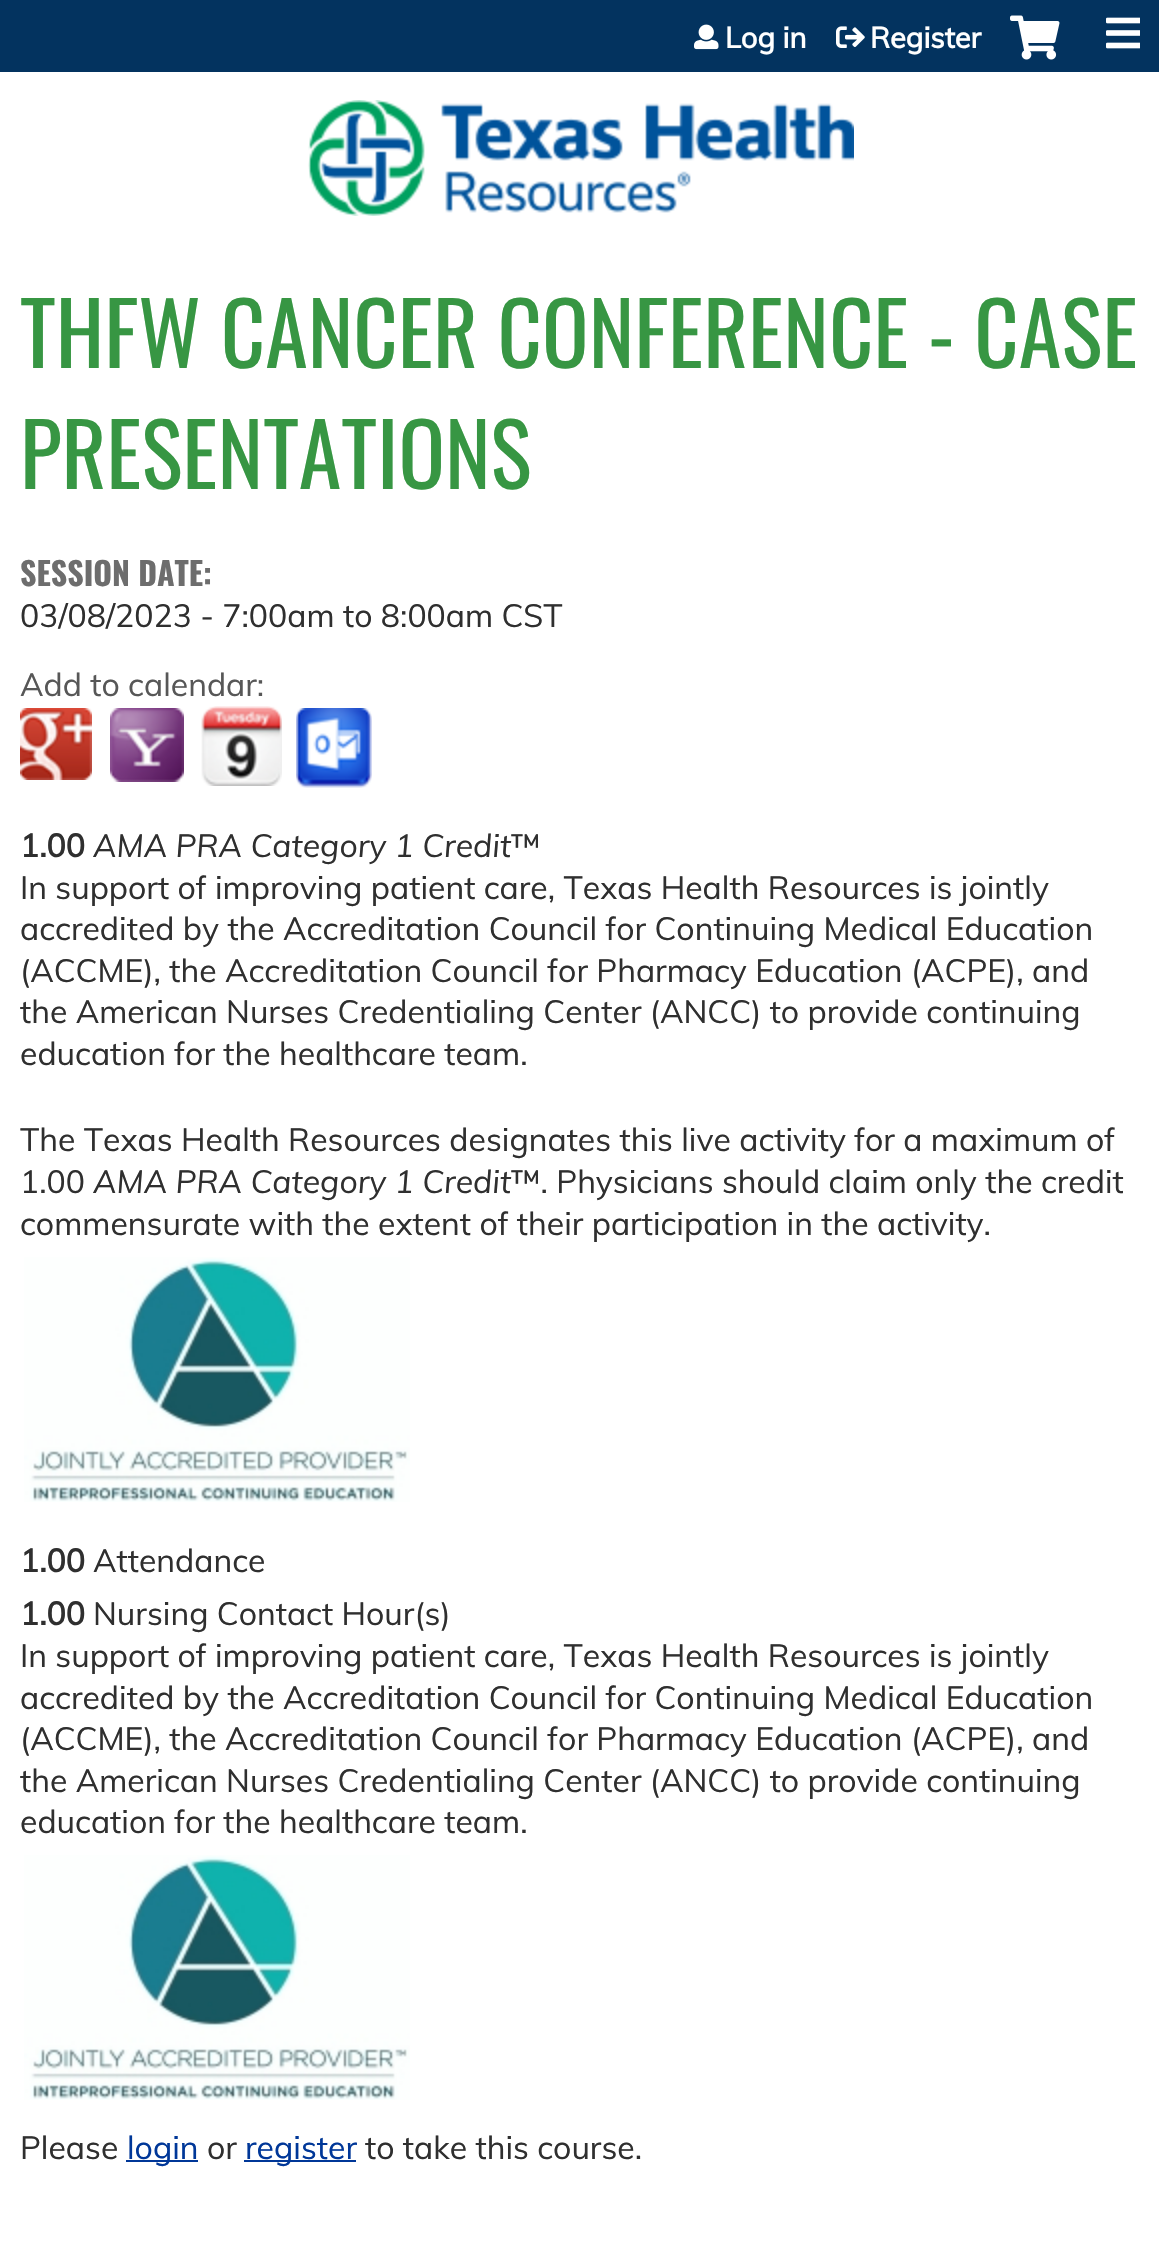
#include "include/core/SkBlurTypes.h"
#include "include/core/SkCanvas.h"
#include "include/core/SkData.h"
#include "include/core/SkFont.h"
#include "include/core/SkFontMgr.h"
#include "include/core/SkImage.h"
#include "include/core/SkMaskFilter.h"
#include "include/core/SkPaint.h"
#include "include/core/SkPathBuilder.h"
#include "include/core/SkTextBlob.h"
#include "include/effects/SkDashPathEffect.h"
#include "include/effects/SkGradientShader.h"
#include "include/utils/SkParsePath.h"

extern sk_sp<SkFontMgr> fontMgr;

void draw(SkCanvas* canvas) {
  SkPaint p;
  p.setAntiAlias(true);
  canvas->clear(SK_ColorWHITE);
  p.setColor(SkColorSetRGB(3, 51, 95));
  canvas->drawRect(SkRect::MakeLTRB(0, 0, 1159, 72), p);
  canvas->drawImageRect(SkImages::DeferredFromEncodedData(SkData::MakeFromFileName("images/1.png")), SkRect::MakeLTRB(694, 24, 719, 50), SkSamplingOptions());
  canvas->drawImageRect(SkImages::DeferredFromEncodedData(SkData::MakeFromFileName("images/2.png")), SkRect::MakeLTRB(836, 26, 865, 48), SkSamplingOptions());
  canvas->drawImageRect(SkImages::DeferredFromEncodedData(SkData::MakeFromFileName("images/3.png")), SkRect::MakeLTRB(1010, 15, 1060, 60), SkSamplingOptions());
  canvas->drawImageRect(SkImages::DeferredFromEncodedData(SkData::MakeFromFileName("images/4.png")), SkRect::MakeLTRB(1106, 17, 1140, 49), SkSamplingOptions());
  canvas->drawImageRect(SkImages::DeferredFromEncodedData(SkData::MakeFromFileName("images/5.png")), SkRect::MakeLTRB(308, 100, 854, 216), SkSamplingOptions());
  canvas->drawImageRect(SkImages::DeferredFromEncodedData(SkData::MakeFromFileName("images/6.png")), SkRect::MakeLTRB(20, 708, 92, 780), SkSamplingOptions());
  canvas->drawImageRect(SkImages::DeferredFromEncodedData(SkData::MakeFromFileName("images/7.png")), SkRect::MakeLTRB(110, 708, 184, 782), SkSamplingOptions());
  canvas->drawImageRect(SkImages::DeferredFromEncodedData(SkData::MakeFromFileName("images/8.png")), SkRect::MakeLTRB(201, 706, 282, 786), SkSamplingOptions());
  canvas->drawImageRect(SkImages::DeferredFromEncodedData(SkData::MakeFromFileName("images/9.png")), SkRect::MakeLTRB(296, 708, 372, 788), SkSamplingOptions());
  canvas->drawImageRect(SkImages::DeferredFromEncodedData(SkData::MakeFromFileName("images/10.png")), SkRect::MakeLTRB(24, 1257, 410, 1502), SkSamplingOptions());
  canvas->drawImageRect(SkImages::DeferredFromEncodedData(SkData::MakeFromFileName("images/10.png")), SkRect::MakeLTRB(24, 1855, 410, 2100), SkSamplingOptions());
  p.setColor(SkColorSetRGB(0, 55, 152));
  canvas->drawRect(SkRect::MakeLTRB(126, 2160, 198, 2162), p);
  canvas->drawRect(SkRect::MakeLTRB(244, 2160, 356, 2162), p);
  SkFont font1(fontMgr->matchFamilyStyle("Muli", SkFontStyle::Bold()), 29);
  font1.setSubpixel(true);
  p.setColor(SK_ColorWHITE);
  canvas->drawString("Log in", 725, 48, font1, p);
  canvas->drawString("Register", 870, 48, font1, p);
  SkFont font2(fontMgr->matchFamilyStyle("Oswald", SkFontStyle::Normal()), 86.4f);
  font2.setSubpixel(true);
  p.setColor(SkColorSetRGB(55, 150, 67));
  canvas->drawString("THFW CANCER CONFERENCE - CASE", 20, 368, font2, p);
  canvas->drawString("PRESENTATIONS", 20, 489, font2, p);
  SkFont font3(fontMgr->matchFamilyStyle("Oswald", SkFontStyle::Bold()), 32);
  font3.setSubpixel(true);
  p.setColor(SkColorSetRGB(109, 109, 109));
  canvas->drawString("SESSION DATE:", 20, 586, font3, p);
  SkFont font4(fontMgr->matchFamilyStyle("Muli", SkFontStyle::Normal()), 32);
  font4.setSubpixel(true);
  p.setColor(SkColorSetRGB(47, 47, 47));
  canvas->drawString("03/08/2023 - 7:00am to 8:00am CST", 20, 627, font4, p);
  p.setColor(SkColorSetRGB(87, 87, 87));
  canvas->drawString("Add to calendar:", 20, 696, font4, p);
  SkFont font5(fontMgr->matchFamilyStyle("Muli", SkFontStyle::Bold()), 32);
  font5.setSubpixel(true);
  p.setColor(SkColorSetRGB(47, 47, 47));
  canvas->drawString("1.00", 20, 857, font5, p);
  SkFont font6(fontMgr->matchFamilyStyle("Muli", SkFontStyle::Italic()), 32);
  font6.setSubpixel(true);
  canvas->drawString("AMA PRA Category 1 Credit", 93, 857, font6, p);
  canvas->drawString("™", 511, 857, font4, p);
  canvas->drawString("In support of improving patient care, Texas Health Resources is jointly", 20, 899, font4, p);
  canvas->drawString("accredited by the Accreditation Council for Continuing Medical Education", 20, 940, font4, p);
  canvas->drawString("(ACCME), the Accreditation Council for Pharmacy Education (ACPE), and", 20, 982, font4, p);
  canvas->drawString("the American Nurses Credentialing Center (ANCC) to provide continuing", 20, 1023, font4, p);
  canvas->drawString("education for the healthcare team.", 20, 1065, font4, p);
  canvas->drawString("The Texas Health Resources designates this live activity for a maximum of", 20, 1151, font4, p);
  canvas->drawString("1.00", 20, 1193, font4, p);
  canvas->drawString("AMA PRA Category 1 Credit", 93, 1193, font6, p);
  canvas->drawString("™. Physicians should claim only the credit", 511, 1193, font4, p);
  canvas->drawString("commensurate with the extent of their participation in the activity.", 20, 1235, font4, p);
  canvas->drawString("1.00", 20, 1572, font5, p);
  canvas->drawString("Attendance", 93, 1572, font4, p);
  canvas->drawString("1.00", 20, 1625, font5, p);
  canvas->drawString("Nursing Contact Hour(s)", 93, 1625, font4, p);
  canvas->drawString("In support of improving patient care, Texas Health Resources is jointly", 20, 1667, font4, p);
  canvas->drawString("accredited by the Accreditation Council for Continuing Medical Education", 20, 1709, font4, p);
  canvas->drawString("(ACCME), the Accreditation Council for Pharmacy Education (ACPE), and", 20, 1750, font4, p);
  canvas->drawString("the American Nurses Credentialing Center (ANCC) to provide continuing", 20, 1792, font4, p);
  canvas->drawString("education for the healthcare team.", 20, 1833, font4, p);
  canvas->drawString("Please", 20, 2159, font4, p);
  p.setColor(SkColorSetRGB(0, 55, 152));
  canvas->drawString("login", 127, 2159, font4, p);
  p.setColor(SkColorSetRGB(47, 47, 47));
  canvas->drawString("or", 207, 2159, font4, p);
  p.setColor(SkColorSetRGB(0, 55, 152));
  canvas->drawString("register", 245, 2159, font4, p);
  p.setColor(SkColorSetRGB(47, 47, 47));
  canvas->drawString("to take this course.", 365, 2159, font4, p);
}
